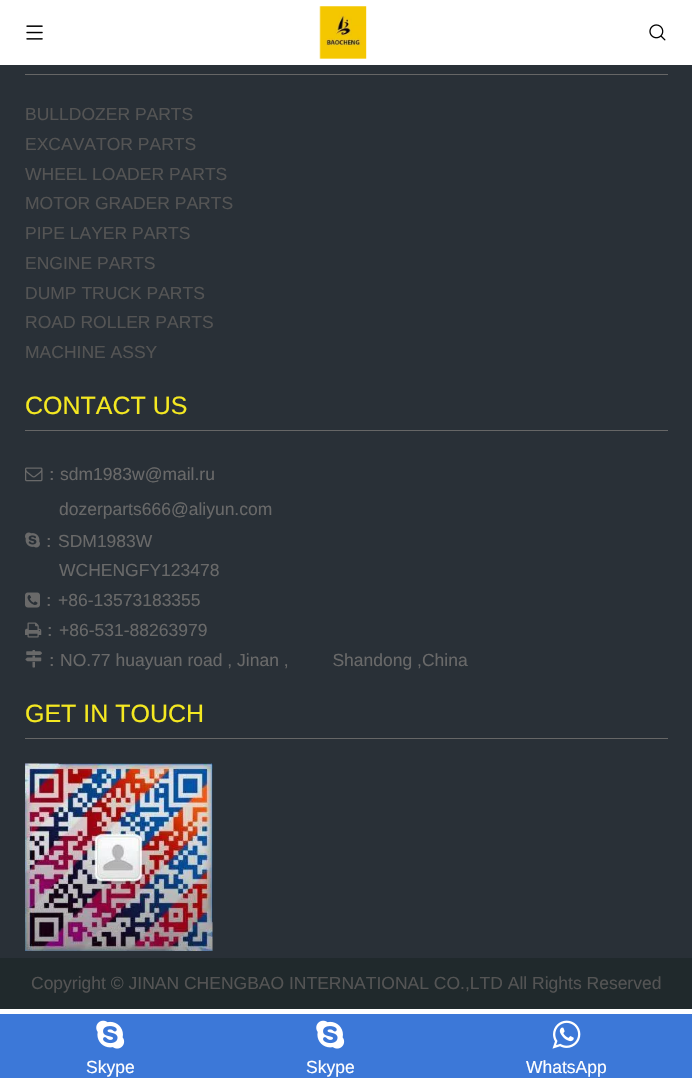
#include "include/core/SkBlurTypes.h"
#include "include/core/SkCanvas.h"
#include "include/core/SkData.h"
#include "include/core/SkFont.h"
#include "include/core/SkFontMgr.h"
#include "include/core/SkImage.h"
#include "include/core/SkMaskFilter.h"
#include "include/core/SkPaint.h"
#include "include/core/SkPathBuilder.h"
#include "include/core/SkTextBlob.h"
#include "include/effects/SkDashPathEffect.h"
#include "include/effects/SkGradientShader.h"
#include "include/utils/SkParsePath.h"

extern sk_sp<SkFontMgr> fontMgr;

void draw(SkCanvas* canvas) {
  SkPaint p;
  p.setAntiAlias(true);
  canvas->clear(SK_ColorWHITE);
  canvas->drawImageRect(SkImages::DeferredFromEncodedData(SkData::MakeFromFileName("images/1.png")), SkRect::MakeLTRB(26, 25, 43, 40), SkSamplingOptions());
  canvas->drawImageRect(SkImages::DeferredFromEncodedData(SkData::MakeFromFileName("images/2.png")), SkRect::MakeLTRB(319, 6, 367, 59), SkSamplingOptions());
  canvas->drawImageRect(SkImages::DeferredFromEncodedData(SkData::MakeFromFileName("images/3.png")), SkRect::MakeLTRB(649, 24, 666, 41), SkSamplingOptions());
  p.setColor(SkColorSetRGB(41, 48, 55));
  canvas->drawRect(SkRect::MakeLTRB(0, 65, 692, 958), p);
  p.setColor(SkColorSetRGB(102, 102, 102));
  canvas->drawRect(SkRect::MakeLTRB(25, 74, 668, 75), p);
  canvas->drawRect(SkRect::MakeLTRB(25, 430, 668, 431), p);
  canvas->drawImageRect(SkImages::DeferredFromEncodedData(SkData::MakeFromFileName("images/4.png")), SkRect::MakeLTRB(25, 467, 43, 482), SkSamplingOptions());
  canvas->drawImageRect(SkImages::DeferredFromEncodedData(SkData::MakeFromFileName("images/5.png")), SkRect::MakeLTRB(25, 532, 40, 548), SkSamplingOptions());
  canvas->drawImageRect(SkImages::DeferredFromEncodedData(SkData::MakeFromFileName("images/6.png")), SkRect::MakeLTRB(25, 592, 40, 608), SkSamplingOptions());
  canvas->drawImageRect(SkImages::DeferredFromEncodedData(SkData::MakeFromFileName("images/7.png")), SkRect::MakeLTRB(25, 622, 42, 638), SkSamplingOptions());
  canvas->drawImageRect(SkImages::DeferredFromEncodedData(SkData::MakeFromFileName("images/8.png")), SkRect::MakeLTRB(25, 650, 42, 668), SkSamplingOptions());
  canvas->drawRect(SkRect::MakeLTRB(25, 738, 668, 739), p);
  canvas->drawImageRect(SkImages::DeferredFromEncodedData(SkData::MakeFromFileName("images/9.png")), SkRect::MakeLTRB(25, 763, 213, 951), SkSamplingOptions());
  p.setColor(SkColorSetRGB(60, 120, 216));
  canvas->drawRect(SkRect::MakeLTRB(0, 1014, 692, 1078), p);
  canvas->drawImageRect(SkImages::DeferredFromEncodedData(SkData::MakeFromFileName("images/10.png")), SkRect::MakeLTRB(96, 1020, 125, 1049), SkSamplingOptions());
  canvas->drawImageRect(SkImages::DeferredFromEncodedData(SkData::MakeFromFileName("images/10.png")), SkRect::MakeLTRB(316, 1020, 345, 1049), SkSamplingOptions());
  canvas->drawImageRect(SkImages::DeferredFromEncodedData(SkData::MakeFromFileName("images/11.png")), SkRect::MakeLTRB(552, 1020, 581, 1049), SkSamplingOptions());
  p.setColor(SkColorSetRGB(32, 41, 44));
  canvas->drawRect(SkRect::MakeLTRB(0, 958, 692, 1009), p);
  SkFont font1(fontMgr->matchFamilyStyle("Liberation Sans", SkFontStyle::Normal()), 17.5f);
  font1.setSubpixel(true);
  p.setColor(SkColorSetRGB(84, 84, 84));
  canvas->drawString("BULLDOZER PARTS", 25, 120, font1, p);
  canvas->drawString("EXCAVATOR PARTS", 25, 150, font1, p);
  canvas->drawString("WHEEL LOADER PARTS", 25, 180, font1, p);
  canvas->drawString("MOTOR GRADER PARTS", 25, 209, font1, p);
  canvas->drawString("PIPE LAYER PARTS", 25, 239, font1, p);
  canvas->drawString("ENGINE PARTS", 25, 269, font1, p);
  canvas->drawString("DUMP TRUCK PARTS", 25, 299, font1, p);
  canvas->drawString("ROAD ROLLER PARTS", 25, 328, font1, p);
  canvas->drawString("MACHINE ASSY", 25, 358, font1, p);
  SkFont font2(fontMgr->matchFamilyStyle("Liberation Sans", SkFontStyle::Normal()), 25);
  font2.setSubpixel(true);
  p.setColor(SkColorSetRGB(244, 232, 33));
  canvas->drawString("CONTACT US", 25, 414, font2, p);
  SkFont font3(fontMgr->matchFamilyStyle("WenQuanYi Zen Hei", SkFontStyle(500, SkFontStyle::kNormal_Width, SkFontStyle::kUpright_Slant)), 17.5f);
  font3.setSubpixel(true);
  p.setColor(SkColorSetRGB(105, 105, 105));
  canvas->drawString("：", 43, 480, font3, p);
  canvas->drawString("sdm1983w@mail.ru", 60, 480, font1, p);
  canvas->drawString("dozerparts666@aliyun.com", 59, 515, font1, p);
  canvas->drawString("：", 40, 547, font3, p);
  canvas->drawString("SDM1983W", 58, 547, font1, p);
  canvas->drawString("WCHENGFY123478", 59, 576, font1, p);
  canvas->drawString("：", 40, 606, font3, p);
  canvas->drawString("+86-13573183355", 58, 606, font1, p);
  canvas->drawString("：", 41, 636, font3, p);
  canvas->drawString("+86-531-88263979", 59, 636, font1, p);
  canvas->drawString("：", 43, 666, font3, p);
  canvas->drawString("NO.77 huayuan road , Jinan ,         Shandong ,China", 60, 666, font1, p);
  p.setColor(SkColorSetRGB(244, 232, 33));
  canvas->drawString("GET IN TOUCH", 25, 722, font2, p);
  p.setColor(SK_ColorWHITE);
  canvas->drawString("Skype", 86, 1073, font1, p);
  canvas->drawString("Skype", 306, 1073, font1, p);
  canvas->drawString("WhatsApp", 526, 1073, font1, p);
  p.setColor(SkColorSetRGB(84, 84, 84));
  canvas->drawString("Copyright © JINAN CHENGBAO INTERNATIONAL CO.,LTD All Rights Reserved", 31, 989, font1, p);
}
